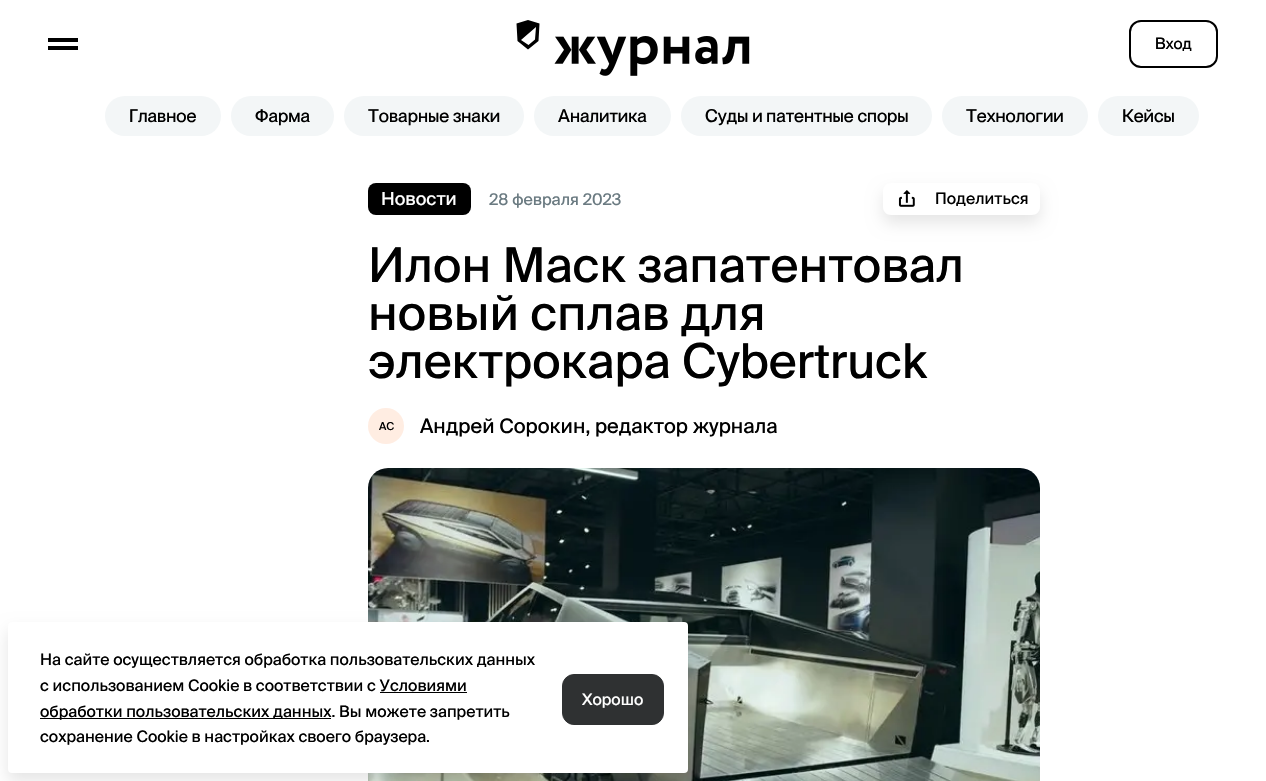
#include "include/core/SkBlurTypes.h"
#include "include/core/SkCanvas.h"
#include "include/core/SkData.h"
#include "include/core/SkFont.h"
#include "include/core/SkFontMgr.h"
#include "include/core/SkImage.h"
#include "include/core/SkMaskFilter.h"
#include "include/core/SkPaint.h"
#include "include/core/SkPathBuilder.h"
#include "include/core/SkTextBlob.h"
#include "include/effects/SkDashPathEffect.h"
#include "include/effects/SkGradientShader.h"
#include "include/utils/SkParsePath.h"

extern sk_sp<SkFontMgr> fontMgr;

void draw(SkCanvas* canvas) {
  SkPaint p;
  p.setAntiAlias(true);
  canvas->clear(SK_ColorWHITE);
  p.setColor(SK_ColorBLACK);
  canvas->drawRect(SkRect::MakeLTRB(48, 38, 78, 42), p);
  canvas->drawRect(SkRect::MakeLTRB(48, 46, 78, 50), p);
  canvas->drawPath(SkPathBuilder(SkPathFillType::kEvenOdd).moveTo(516.5f, 23.5f).lineTo(517.5f, 41).lineTo(528, 49.5f).lineTo(538.5f, 41).lineTo(539.5f, 23.5f).lineTo(528, 20).close().moveTo(521, 40).lineTo(528.5f, 45).lineTo(535, 39.5f).lineTo(536, 27).close().detach(), p);
  canvas->drawImageRect(SkImages::DeferredFromEncodedData(SkData::MakeFromFileName("images/1.png")), SkRect::MakeLTRB(554, 36, 750, 76), SkSamplingOptions());
  p.setStyle(SkPaint::kStroke_Style);
  p.setStrokeWidth(2);
  canvas->drawRoundRect(SkRect::MakeLTRB(1130, 21, 1217, 67), 11, 11, p);
  p.setStyle(SkPaint::kFill_Style);
  p.setColor(SkColorSetRGB(243, 246, 247));
  canvas->drawRoundRect(SkRect::MakeLTRB(105, 96, 221, 136), 20, 20, p);
  canvas->drawRoundRect(SkRect::MakeLTRB(231, 96, 334, 136), 20, 20, p);
  canvas->drawRoundRect(SkRect::MakeLTRB(344, 96, 524, 136), 20, 20, p);
  canvas->drawRoundRect(SkRect::MakeLTRB(534, 96, 671, 136), 20, 20, p);
  canvas->drawRoundRect(SkRect::MakeLTRB(681, 96, 932, 136), 20, 20, p);
  canvas->drawRoundRect(SkRect::MakeLTRB(942, 96, 1088, 136), 20, 20, p);
  canvas->drawRoundRect(SkRect::MakeLTRB(1098, 96, 1199, 136), 20, 20, p);
  p.setColor(SK_ColorBLACK);
  canvas->drawRoundRect(SkRect::MakeLTRB(368, 183, 471, 215), 8, 8, p);
  canvas->save();
  canvas->clipPath(SkPathBuilder(SkPathFillType::kEvenOdd).moveTo(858, 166).lineTo(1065, 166).lineTo(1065, 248).lineTo(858, 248).close().moveTo(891, 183).lineTo(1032, 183).cubicTo(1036.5f, 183, 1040, 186.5f, 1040, 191).lineTo(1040, 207).cubicTo(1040, 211.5f, 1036.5f, 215, 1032, 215).lineTo(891, 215).cubicTo(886.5f, 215, 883, 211.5f, 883, 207).lineTo(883, 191).cubicTo(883, 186.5f, 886.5f, 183, 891, 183).close().detach(), true);
  p.setColor(SkColorSetARGB(26, 0, 0, 0));
  p.setMaskFilter(SkMaskFilter::MakeBlur(kNormal_SkBlurStyle, 8));
  canvas->drawRoundRect(SkRect::MakeLTRB(883, 191, 1040, 223), 8, 8, p);
  p.setMaskFilter(nullptr);
  canvas->restore();
  canvas->drawImageRect(SkImages::DeferredFromEncodedData(SkData::MakeFromFileName("images/2.png")), SkRect::MakeLTRB(898, 190, 915, 207), SkSamplingOptions());
  p.setColor(SkColorSetRGB(255, 237, 226));
  canvas->drawCircle(386, 426, 18, p);
  canvas->drawImageRect(SkImages::DeferredFromEncodedData(SkData::MakeFromFileName("images/3.png")), SkRect::MakeLTRB(368, 468, 1040, 781), SkSamplingOptions());
  p.setColor(SkColorSetARGB(26, 0, 0, 0));
  p.setMaskFilter(SkMaskFilter::MakeBlur(kNormal_SkBlurStyle, 8));
  canvas->drawRoundRect(SkRect::MakeLTRB(8, 630, 688, 781), 4, 4, p);
  p.setMaskFilter(nullptr);
  p.setColor(SK_ColorWHITE);
  canvas->drawRoundRect(SkRect::MakeLTRB(8, 622, 688, 773), 4, 4, p);
  p.setColor(SK_ColorBLACK);
  canvas->drawRect(SkRect::MakeLTRB(380, 692, 467, 693), p);
  canvas->drawRect(SkRect::MakeLTRB(40, 718, 331, 719), p);
  p.setColor(SkColorSetRGB(47, 49, 50));
  canvas->drawRoundRect(SkRect::MakeLTRB(562.5f, 674.5f, 663.5f, 724.5f), 11.5f, 11.5f, p);
  p.setStyle(SkPaint::kStroke_Style);
  p.setStrokeWidth(1);
  canvas->drawRoundRect(SkRect::MakeLTRB(562.5f, 674.5f, 663.5f, 724.5f), 11.5f, 11.5f, p);
  SkFont font1(fontMgr->matchFamilyStyle("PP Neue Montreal", SkFontStyle(500, SkFontStyle::kNormal_Width, SkFontStyle::kUpright_Slant)), 16);
  font1.setSubpixel(true);
  p.setStyle(SkPaint::kFill_Style);
  p.setColor(SK_ColorBLACK);
  canvas->drawString("Вход", 1155, 49, font1, p);
  SkFont font2(fontMgr->matchFamilyStyle("PP Neue Montreal", SkFontStyle(500, SkFontStyle::kNormal_Width, SkFontStyle::kUpright_Slant)), 18);
  font2.setSubpixel(true);
  canvas->drawString("Главное", 129, 122, font2, p);
  canvas->drawString("Фарма", 255, 122, font2, p);
  canvas->drawString("Товарные знаки", 368, 122, font2, p);
  canvas->drawString("Аналитика", 558, 122, font2, p);
  canvas->drawString("Суды и патентные споры", 705, 122, font2, p);
  canvas->drawString("Технологии", 966, 122, font2, p);
  canvas->drawString("Кейсы", 1122, 122, font2, p);
  SkFont font3(fontMgr->matchFamilyStyle("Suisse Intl", SkFontStyle::Normal()), 18);
  font3.setSubpixel(true);
  p.setColor(SK_ColorWHITE);
  canvas->drawString("Новости", 381, 205, font3, p);
  SkFont font4(fontMgr->matchFamilyStyle("Suisse Intl", SkFontStyle::Normal()), 16);
  font4.setSubpixel(true);
  p.setColor(SkColorSetRGB(106, 122, 129));
  canvas->drawString("28 февраля 2023", 489, 205, font4, p);
  SkFont font5(fontMgr->matchFamilyStyle("Suisse Intl", SkFontStyle::Normal()), 15.8f);
  font5.setSubpixel(true);
  p.setColor(SK_ColorBLACK);
  canvas->drawString("Поделиться", 935, 204, font5, p);
  SkFont font6(fontMgr->matchFamilyStyle("Suisse Intl", SkFontStyle::Normal()), 48);
  font6.setSubpixel(true);
  canvas->drawString("Илон Маск запатентовал", 368, 282, font6, p);
  canvas->drawString("новый сплав для", 368, 330, font6, p);
  canvas->drawString("электрокара Cybertruck", 368, 378, font6, p);
  SkFont font7(fontMgr->matchFamilyStyle("Suisse Intl", SkFontStyle::Normal()), 11);
  font7.setSubpixel(true);
  canvas->drawString("АС", 379, 430, font7, p);
  SkFont font8(fontMgr->matchFamilyStyle("Suisse Intl", SkFontStyle::Normal()), 20);
  font8.setSubpixel(true);
  canvas->drawString("Андрей Сорокин, редактор журнала", 420, 433, font8, p);
  canvas->drawString("На сайте осуществляется обработка пользовательских данных", 40, 665, font5, p);
  canvas->drawString("с использованием Cookie в соответствии с Условиями", 40, 691, font5, p);
  canvas->drawString("обработки пользовательских данных. Вы можете запретить", 40, 717, font5, p);
  canvas->drawString("сохранение Cookie в настройках своего браузера.", 40, 742, font5, p);
  p.setColor(SK_ColorWHITE);
  canvas->drawString("Хорошо", 582, 705, font5, p);
}
